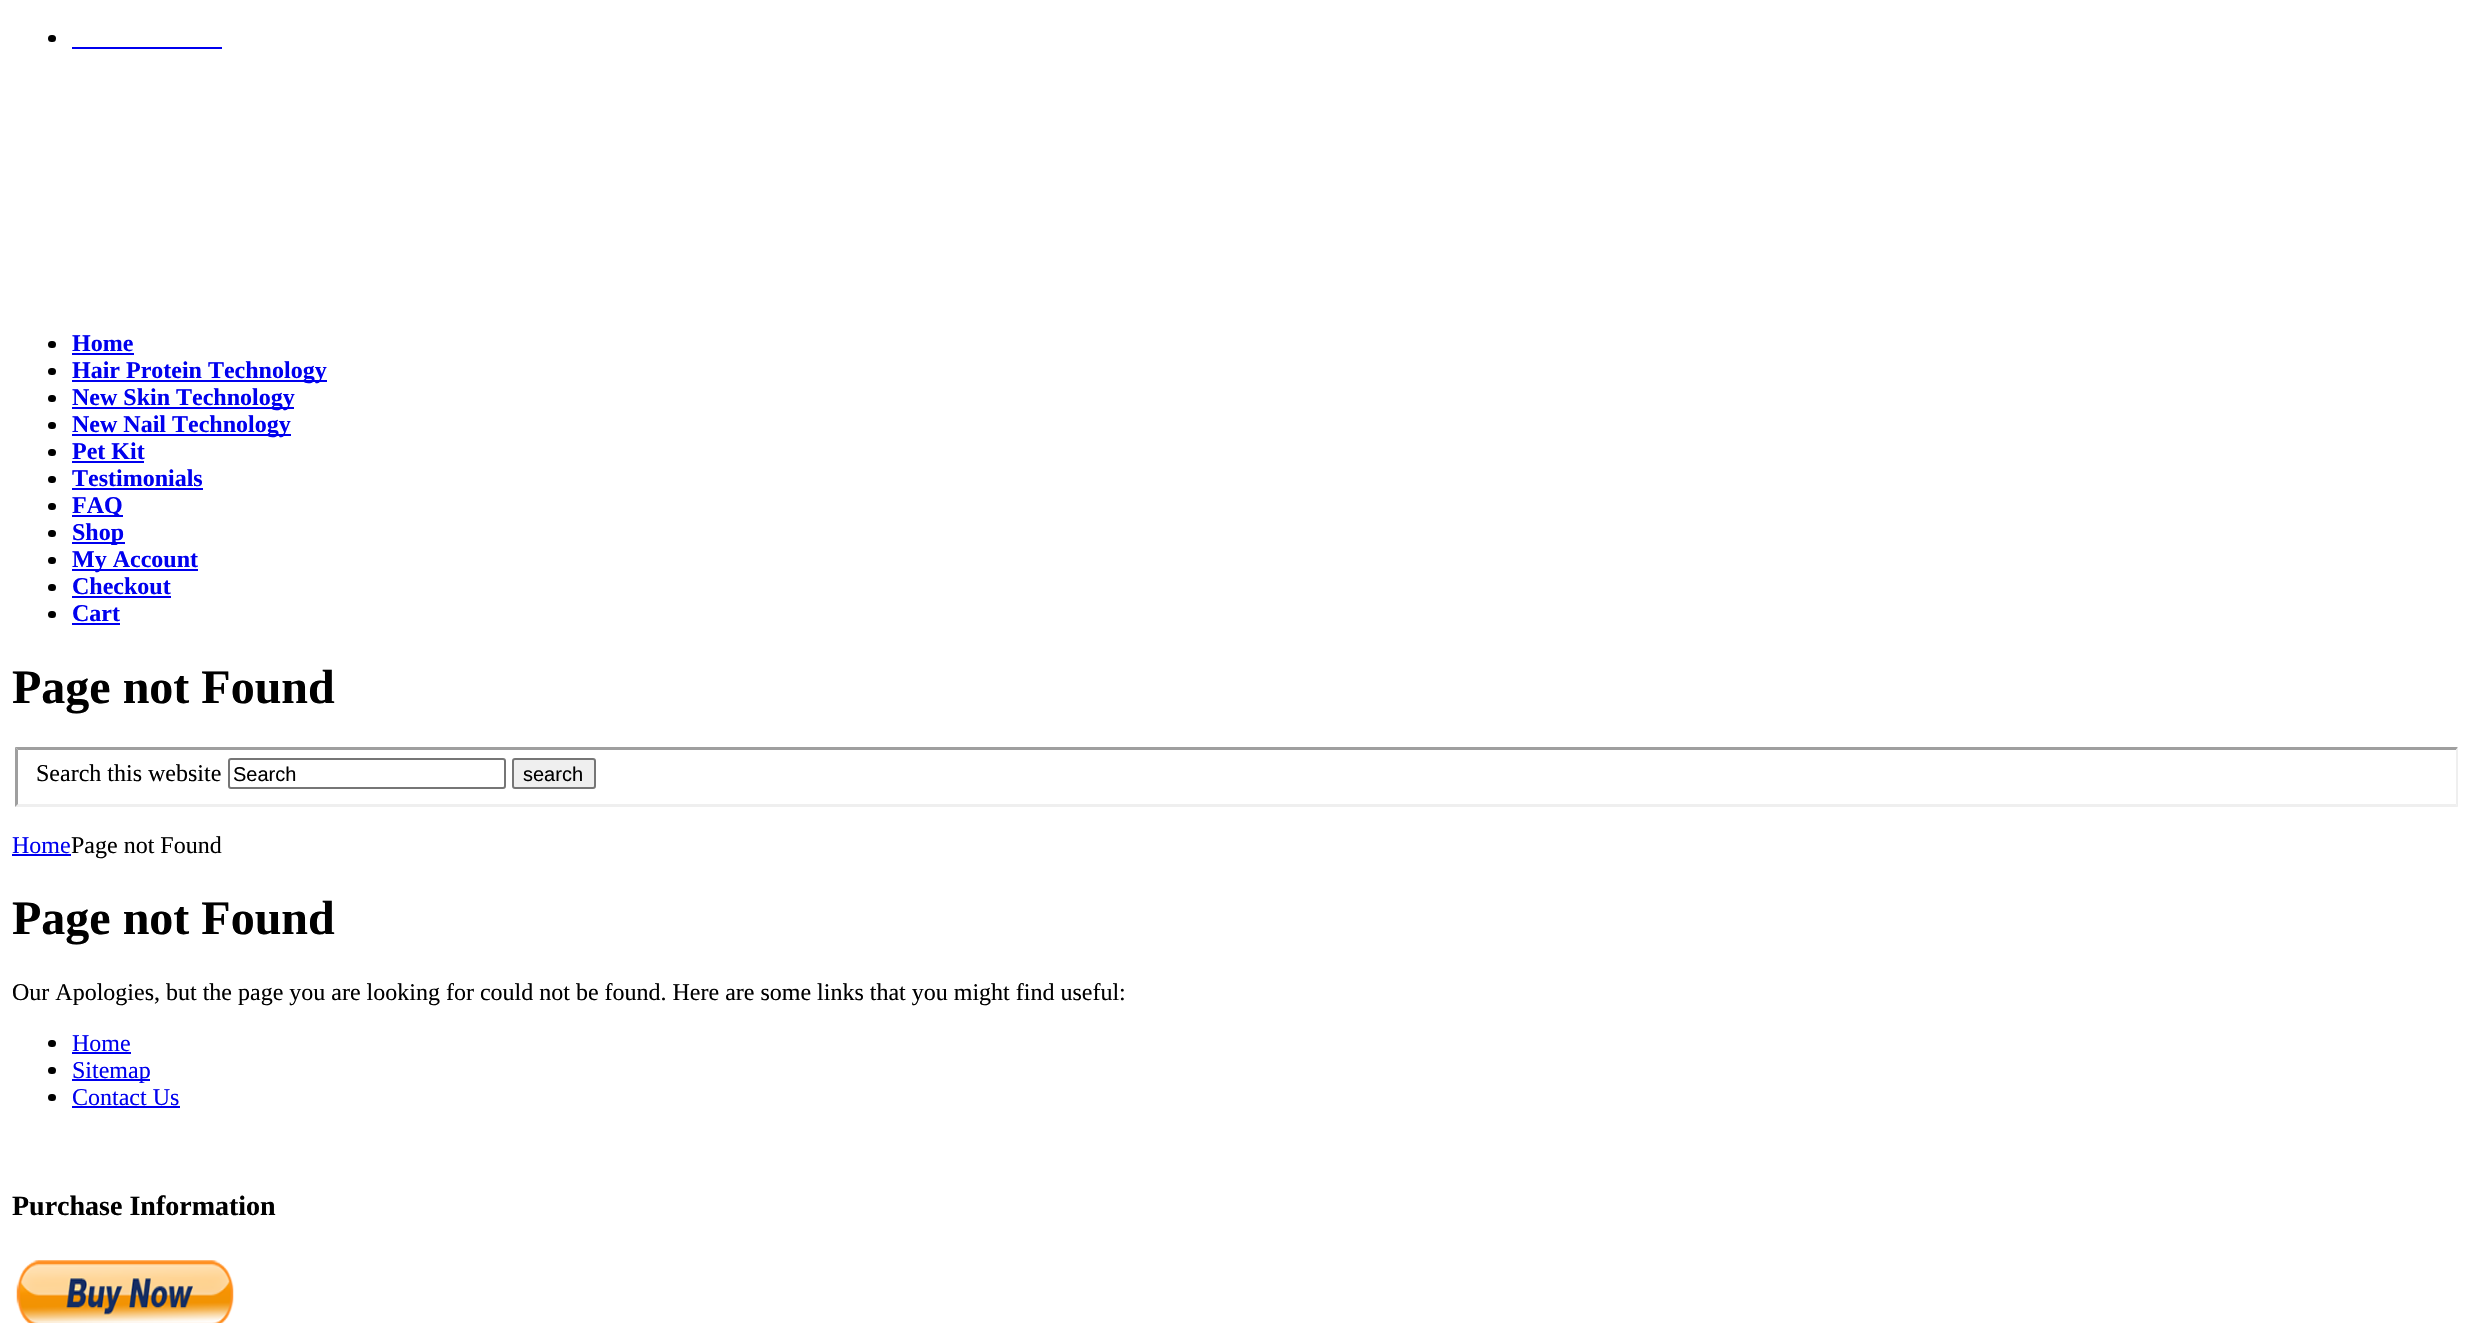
#include "include/core/SkBlurTypes.h"
#include "include/core/SkCanvas.h"
#include "include/core/SkData.h"
#include "include/core/SkFont.h"
#include "include/core/SkFontMgr.h"
#include "include/core/SkImage.h"
#include "include/core/SkMaskFilter.h"
#include "include/core/SkPaint.h"
#include "include/core/SkPathBuilder.h"
#include "include/core/SkTextBlob.h"
#include "include/effects/SkDashPathEffect.h"
#include "include/effects/SkGradientShader.h"
#include "include/utils/SkParsePath.h"

extern sk_sp<SkFontMgr> fontMgr;

void draw(SkCanvas* canvas) {
  SkPaint p;
  p.setAntiAlias(true);
  canvas->clear(SK_ColorWHITE);
  p.setColor(SK_ColorBLACK);
  canvas->drawRoundRect(SkRect::MakeLTRB(48, 35, 56, 42), 3.5f, 3.5f, p);
  p.setColor(SkColorSetRGB(0, 0, 238));
  canvas->drawRect(SkRect::MakeLTRB(72, 47, 222, 49), p);
  p.setColor(SK_ColorBLACK);
  canvas->drawRoundRect(SkRect::MakeLTRB(48, 341, 56, 348), 3.5f, 3.5f, p);
  p.setColor(SkColorSetRGB(0, 0, 238));
  canvas->drawRect(SkRect::MakeLTRB(72, 353, 134, 355), p);
  p.setColor(SK_ColorBLACK);
  canvas->drawRoundRect(SkRect::MakeLTRB(48, 368, 56, 375), 3.5f, 3.5f, p);
  p.setColor(SkColorSetRGB(0, 0, 238));
  canvas->drawRect(SkRect::MakeLTRB(72, 380, 327, 382), p);
  p.setColor(SK_ColorBLACK);
  canvas->drawRoundRect(SkRect::MakeLTRB(48, 395, 56, 402), 3.5f, 3.5f, p);
  p.setColor(SkColorSetRGB(0, 0, 238));
  canvas->drawRect(SkRect::MakeLTRB(72, 407, 294, 409), p);
  p.setColor(SK_ColorBLACK);
  canvas->drawRoundRect(SkRect::MakeLTRB(48, 422, 56, 429), 3.5f, 3.5f, p);
  p.setColor(SkColorSetRGB(0, 0, 238));
  canvas->drawRect(SkRect::MakeLTRB(72, 434, 291, 436), p);
  p.setColor(SK_ColorBLACK);
  canvas->drawRoundRect(SkRect::MakeLTRB(48, 449, 56, 456), 3.5f, 3.5f, p);
  p.setColor(SkColorSetRGB(0, 0, 238));
  canvas->drawRect(SkRect::MakeLTRB(72, 461, 144, 463), p);
  p.setColor(SK_ColorBLACK);
  canvas->drawRoundRect(SkRect::MakeLTRB(48, 476, 56, 483), 3.5f, 3.5f, p);
  p.setColor(SkColorSetRGB(0, 0, 238));
  canvas->drawRect(SkRect::MakeLTRB(72, 488, 203, 490), p);
  p.setColor(SK_ColorBLACK);
  canvas->drawRoundRect(SkRect::MakeLTRB(48, 503, 56, 510), 3.5f, 3.5f, p);
  p.setColor(SkColorSetRGB(0, 0, 238));
  canvas->drawRect(SkRect::MakeLTRB(72, 515, 123, 517), p);
  p.setColor(SK_ColorBLACK);
  canvas->drawRoundRect(SkRect::MakeLTRB(48, 530, 56, 537), 3.5f, 3.5f, p);
  p.setColor(SkColorSetRGB(0, 0, 238));
  canvas->drawRect(SkRect::MakeLTRB(72, 542, 125, 544), p);
  p.setColor(SK_ColorBLACK);
  canvas->drawRoundRect(SkRect::MakeLTRB(48, 557, 56, 564), 3.5f, 3.5f, p);
  p.setColor(SkColorSetRGB(0, 0, 238));
  canvas->drawRect(SkRect::MakeLTRB(72, 569, 198, 571), p);
  p.setColor(SK_ColorBLACK);
  canvas->drawRoundRect(SkRect::MakeLTRB(48, 584, 56, 591), 3.5f, 3.5f, p);
  p.setColor(SkColorSetRGB(0, 0, 238));
  canvas->drawRect(SkRect::MakeLTRB(72, 596, 171, 598), p);
  p.setColor(SK_ColorBLACK);
  canvas->drawRoundRect(SkRect::MakeLTRB(48, 611, 56, 618), 3.5f, 3.5f, p);
  p.setColor(SkColorSetRGB(0, 0, 238));
  canvas->drawRect(SkRect::MakeLTRB(72, 623, 120, 625), p);
  p.setColor(SkColorSetRGB(159, 159, 159));
  canvas->drawPath(SkPathBuilder().moveTo(15, 747).lineTo(2458, 747).lineTo(2456, 750).lineTo(18, 750).close().detach(), p);
  p.setColor(SkColorSetRGB(239, 239, 239));
  canvas->drawPath(SkPathBuilder().moveTo(2458, 747).lineTo(2458, 807).lineTo(2456, 804).lineTo(2456, 750).close().detach(), p);
  canvas->drawPath(SkPathBuilder().moveTo(2458, 807).lineTo(15, 807).lineTo(18, 804).lineTo(2456, 804).close().detach(), p);
  p.setColor(SkColorSetRGB(159, 159, 159));
  canvas->drawPath(SkPathBuilder().moveTo(15, 807).lineTo(15, 747).lineTo(18, 750).lineTo(18, 804).close().detach(), p);
  p.setStyle(SkPaint::kStroke_Style);
  p.setStrokeWidth(2);
  p.setColor(SkColorSetRGB(118, 118, 118));
  canvas->drawRoundRect(SkRect::MakeLTRB(229, 759, 505, 788), 2, 2, p);
  p.setStyle(SkPaint::kFill_Style);
  p.setColor(SkColorSetRGB(239, 239, 239));
  canvas->drawRoundRect(SkRect::MakeLTRB(513, 759, 595, 788), 2, 2, p);
  p.setStyle(SkPaint::kStroke_Style);
  p.setColor(SkColorSetRGB(118, 118, 118));
  canvas->drawRoundRect(SkRect::MakeLTRB(513, 759, 595, 788), 2, 2, p);
  p.setStyle(SkPaint::kFill_Style);
  p.setColor(SkColorSetRGB(0, 0, 238));
  canvas->drawRect(SkRect::MakeLTRB(12, 854, 71, 856), p);
  p.setColor(SK_ColorBLACK);
  canvas->drawRoundRect(SkRect::MakeLTRB(48, 1040, 56, 1047), 3.5f, 3.5f, p);
  p.setColor(SkColorSetRGB(0, 0, 238));
  canvas->drawRect(SkRect::MakeLTRB(72, 1052, 131, 1054), p);
  p.setColor(SK_ColorBLACK);
  canvas->drawRoundRect(SkRect::MakeLTRB(48, 1067, 56, 1074), 3.5f, 3.5f, p);
  p.setColor(SkColorSetRGB(0, 0, 238));
  canvas->drawRect(SkRect::MakeLTRB(72, 1079, 150, 1081), p);
  p.setColor(SK_ColorBLACK);
  canvas->drawRoundRect(SkRect::MakeLTRB(48, 1094, 56, 1101), 3.5f, 3.5f, p);
  p.setColor(SkColorSetRGB(0, 0, 238));
  canvas->drawRect(SkRect::MakeLTRB(72, 1106, 180, 1108), p);
  canvas->drawImageRect(SkImages::DeferredFromEncodedData(SkData::MakeFromFileName("images/1.png")), SkRect::MakeLTRB(16, 1260, 234, 1323), SkSamplingOptions());
  SkFont font1(fontMgr->matchFamilyStyle("Liberation Serif", SkFontStyle::Bold()), 24);
  font1.setSubpixel(true);
  canvas->drawString("Home", 72, 351, font1, p);
  canvas->drawString("Hair Protein Technology", 72, 378, font1, p);
  canvas->drawString("New Skin Technology", 72, 405, font1, p);
  canvas->drawString("New Nail Technology", 72, 432, font1, p);
  canvas->drawString("Pet Kit", 72, 459, font1, p);
  canvas->drawString("Testimonials", 72, 486, font1, p);
  canvas->drawString("FAQ", 72, 513, font1, p);
  canvas->drawString("Shop", 72, 540, font1, p);
  canvas->drawString("My Account", 72, 567, font1, p);
  canvas->drawString("Checkout", 72, 594, font1, p);
  canvas->drawString("Cart", 72, 621, font1, p);
  SkFont font2(fontMgr->matchFamilyStyle("Liberation Serif", SkFontStyle::Bold()), 48);
  font2.setSubpixel(true);
  p.setColor(SK_ColorBLACK);
  canvas->drawString("Page not Found", 12, 703, font2, p);
  SkFont font3(fontMgr->matchFamilyStyle("Liberation Serif", SkFontStyle::Normal()), 24);
  font3.setSubpixel(true);
  canvas->drawString("Search this website", 36, 781, font3, p);
  SkFont font4(fontMgr->matchFamilyStyle("Liberation Sans", SkFontStyle::Normal()), 20);
  font4.setSubpixel(true);
  canvas->drawString("Search", 233, 781, font4, p);
  canvas->drawString("search", 523, 781, font4, p);
  p.setColor(SkColorSetRGB(0, 0, 238));
  canvas->drawString("Home", 12, 853, font3, p);
  p.setColor(SK_ColorBLACK);
  canvas->drawString("Page not Found", 71, 853, font3, p);
  canvas->drawString("Page not Found", 12, 934, font2, p);
  canvas->drawString("Our Apologies, but the page you are looking for could not be found. Here are some links that you might find useful:", 12, 1000, font3, p);
  p.setColor(SkColorSetRGB(0, 0, 238));
  canvas->drawString("Home", 72, 1051, font3, p);
  canvas->drawString("Sitemap", 72, 1078, font3, p);
  canvas->drawString("Contact Us", 72, 1105, font3, p);
  SkFont font5(fontMgr->matchFamilyStyle("Liberation Serif", SkFontStyle::Bold()), 28);
  font5.setSubpixel(true);
  p.setColor(SK_ColorBLACK);
  canvas->drawString("Purchase Information", 12, 1215, font5, p);
}
